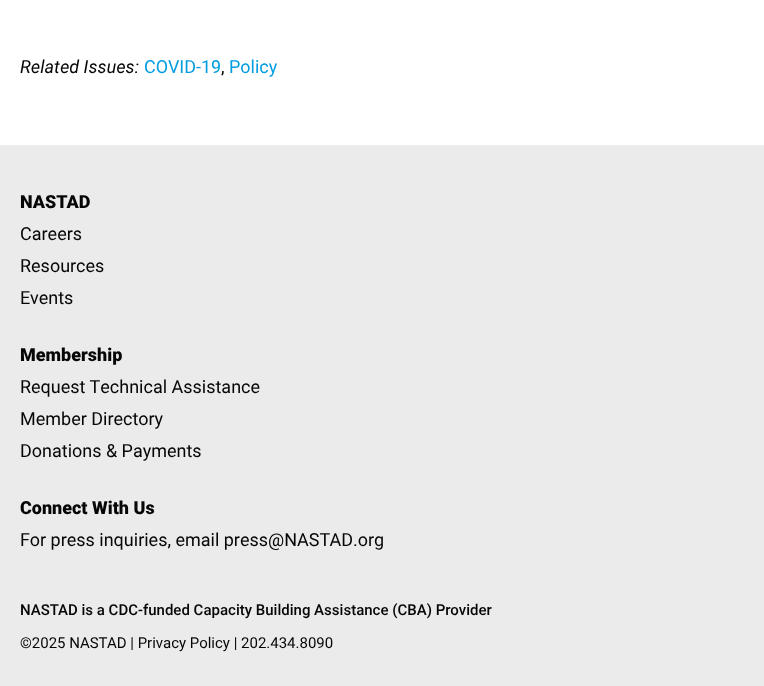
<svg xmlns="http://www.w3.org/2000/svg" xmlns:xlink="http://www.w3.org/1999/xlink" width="764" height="686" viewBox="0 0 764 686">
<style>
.cls-1{font:italic 18px Roboto;fill:#060606}
.cls-2{font:18px Roboto;fill:#019de0}
.cls-3{font:18px Roboto;fill:#060606}
.cls-4{font:900 18px Roboto;fill:#060606}
.cls-5{font:500 15px Roboto;fill:#060606}
.cls-6{font:15px Roboto;fill:#060606}
</style>
<rect width="100%" height="100%" fill="#ffffff"/>
<rect fill="#ebebeb" x="0" y="145" width="764" height="541"/>
<text class="cls-1" x="20" y="73">Related Issues:</text>
<text class="cls-2" x="144" y="73">COVID-19</text>
<text class="cls-3" x="221" y="73">,</text>
<text class="cls-2" x="229" y="73">Policy</text>
<text class="cls-4" x="20" y="208">NASTAD</text>
<text class="cls-3"><tspan x="20" y="240">Careers</tspan><tspan x="20" y="272">Resources</tspan><tspan x="20" y="304">Events</tspan></text>
<text class="cls-4" x="20" y="361">Membership</text>
<text class="cls-3"><tspan x="20" y="393">Request Technical Assistance</tspan><tspan x="20" y="425">Member Directory</tspan><tspan x="20" y="457">Donations &amp; Payments</tspan></text>
<text class="cls-4" x="20" y="514">Connect With Us</text>
<text class="cls-3" x="20" y="546">For press inquiries, email press@NASTAD.org</text>
<text class="cls-5" x="20" y="615">NASTAD is a CDC-funded Capacity Building Assistance (CBA) Provider</text>
<text class="cls-6" x="20" y="648">©2025 NASTAD | Privacy Policy | 202.434.8090</text>
</svg>
